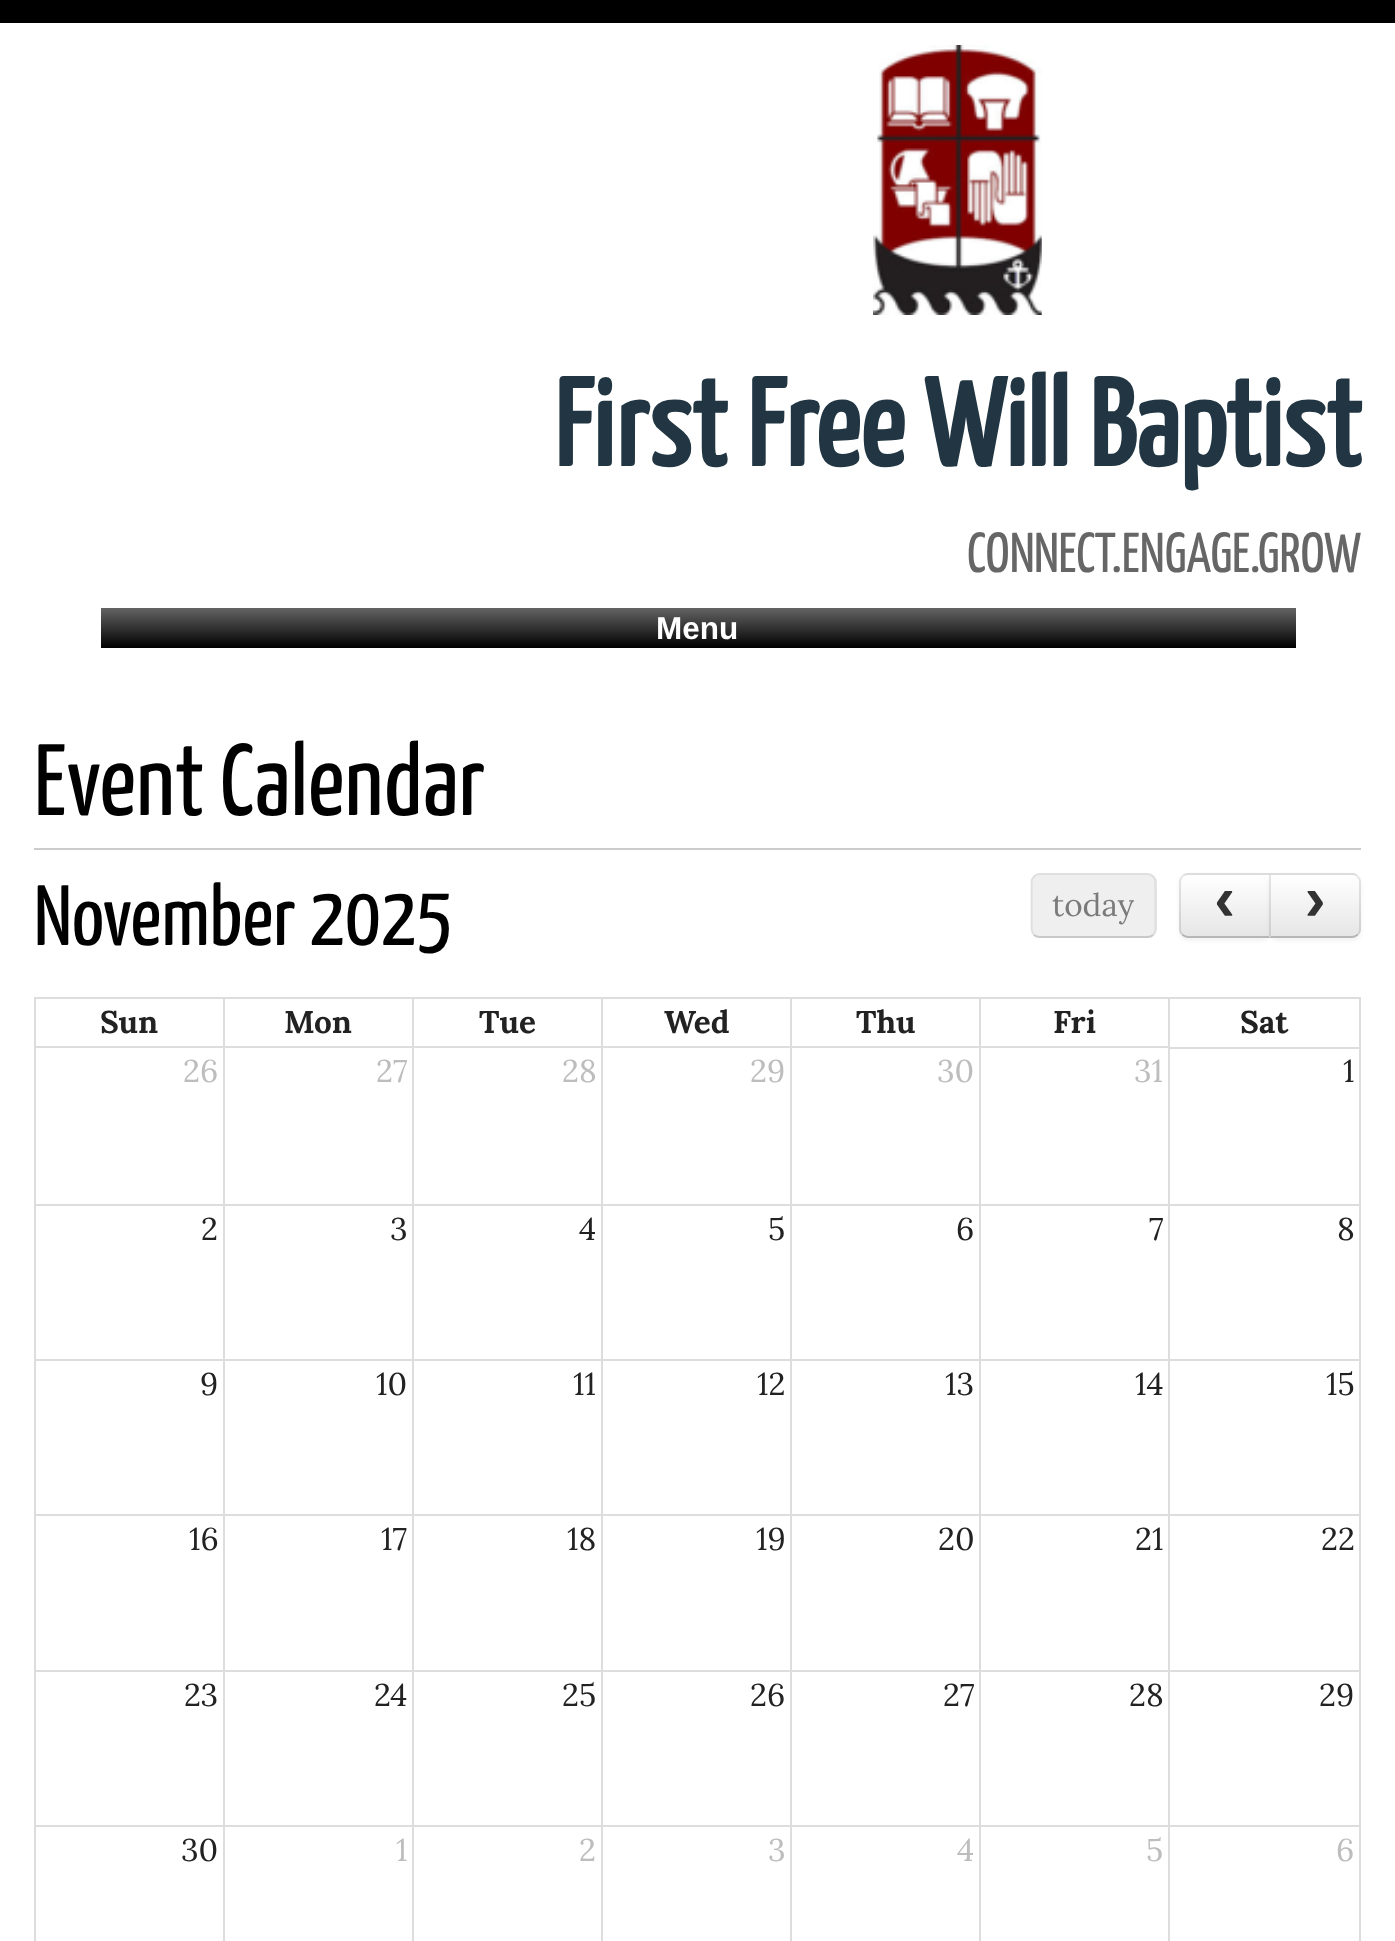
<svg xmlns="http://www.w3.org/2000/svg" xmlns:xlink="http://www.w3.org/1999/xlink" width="1395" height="1941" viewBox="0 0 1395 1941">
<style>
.cls-1{font:bold 123.75px Yanone Kaffeesatz;fill:#213642}
.cls-2{font:200 56.25px Yanone Kaffeesatz;fill:#666666}
.cls-3{font:bold 31.5px Liberation Sans;fill:#ffffff}
.cls-4{font:200 101.25px Yanone Kaffeesatz;fill:#000000}
.cls-5{font:200 85.5px Yanone Kaffeesatz;fill:#000000}
.cls-6{font:31.5px Lora;fill:#7a7a7a}
.cls-7{font:bold 63px Liberation Mono;fill:#333333}
.cls-8{font:bold 31.5px Lora;fill:#222222}
.cls-9{font:31.5px Lora;fill:#bdbdbd}
.cls-10{font:31.5px Lora;fill:#222222}
</style>
<defs>
<linearGradient id="g1" gradientUnits="userSpaceOnUse" x1="699" y1="607" x2="699" y2="648"><stop offset="0" stop-color="#666666"/><stop offset="1" stop-color="#000000"/></linearGradient>
<clipPath id="clip1"><path d="M1188 873H1271V938H1188C1183 938 1179 934 1179 929V882C1179 877 1183 873 1188 873Z"/></clipPath>
<linearGradient id="g2" gradientUnits="userSpaceOnUse" x1="1225" y1="875" x2="1225" y2="936"><stop offset="0" stop-color="#ffffff"/><stop offset="1" stop-color="#e6e6e6"/></linearGradient>
<clipPath id="clip2"><path d="M1269 873H1352C1357 873 1361 877 1361 882V929C1361 934 1357 938 1352 938H1269Z"/></clipPath>
<linearGradient id="g3" gradientUnits="userSpaceOnUse" x1="1315" y1="875" x2="1315" y2="936"><stop offset="0" stop-color="#ffffff"/><stop offset="1" stop-color="#e6e6e6"/></linearGradient>
</defs>
<rect width="100%" height="100%" fill="#ffffff"/>
<rect fill="#000000" x="0" y="0" width="1395" height="23"/>
<image xlink:href="image0.png" x="873" y="45" width="169" height="270"/>
<rect fill="url(#g1)" x="101" y="608" width="1195" height="40"/>
<rect fill="#cccccc" x="34" y="848" width="1327" height="2"/>
<rect fill="#efefef" x="1031" y="873" width="126" height="65" rx="9"/>
<path fill="none" stroke="#595959" stroke-opacity="0.25" stroke-width="2.2" d="M1153 935C1151.5 936.5 1149.5 937 1147.5 937H1039.5C1037.5 937 1035.5 936.5 1034 935"/>
<path fill="none" stroke="#595959" stroke-opacity="0.1" stroke-width="2.2" d="M1034 935C1032.5 933.5 1031.5 931.5 1031.5 929V882C1031.5 880 1032.5 878 1034 876.5C1035.5 875 1037.5 874 1039.5 874H1147.5C1149.5 874 1151.5 875 1153 876.5C1154.5 878 1155.5 880 1155.5 882V929C1155.5 931.5 1154.5 933.5 1153 935"/>
<rect fill="#000000" fill-opacity="0.05" filter="blur(2px)" x="1179" y="875" width="92" height="66" rx="9"/>
<path fill="#f5f5f5" d="M1188 873H1271V938H1188C1183 938 1179 934 1179 929V882C1179 877 1183 873 1188 873Z"/>
<g clip-path="url(#clip1)">
<rect fill="url(#g2)" x="1179" y="875" width="90" height="61"/>
</g>
<path fill="#000000" fill-opacity="0.1" d="M1188 873C1186 873 1183 874 1182 876L1183 877C1184 876 1186 875 1188 875H1269L1271 873Z"/>
<path fill="#000000" fill-opacity="0.25" d="M1271 938L1269 936H1188C1186 936 1184 935 1183 934L1182 935C1183 937 1186 938 1188 938Z"/>
<path fill="#000000" fill-opacity="0.1" d="M1179 882V929C1179 932 1180 934 1182 935L1183 934C1182 933 1181 931 1181 929V882C1181 880 1182 878 1183 877L1182 876C1180 877 1179 880 1179 882Z"/>
<rect fill="#000000" fill-opacity="0.05" filter="blur(2px)" x="1269" y="875" width="92" height="66" rx="9"/>
<path fill="#f5f5f5" d="M1269 873H1352C1357 873 1361 877 1361 882V929C1361 934 1357 938 1352 938H1269Z"/>
<g clip-path="url(#clip2)">
<rect fill="url(#g3)" x="1269" y="875" width="92" height="61"/>
</g>
<path fill="#000000" fill-opacity="0.1" d="M1269 873L1271 875H1352C1354 875 1356 876 1357 877L1358 876C1357 874 1355 873 1352 873Z"/>
<path fill="#000000" fill-opacity="0.1" d="M1358 876C1360 877 1361 880 1361 882V929C1361 932 1360 934 1358 935L1357 934C1358 933 1359 931 1359 929V882C1359 880 1358 878 1357 877Z"/>
<path fill="#000000" fill-opacity="0.25" d="M1358 935C1357 937 1354 938 1352 938H1269L1271 936H1352C1354 936 1356 935 1357 934Z"/>
<path fill="#000000" fill-opacity="0.1" d="M1271 875L1269 873V938L1271 936Z"/>
<rect fill="#dddddd" x="34" y="997" width="1134" height="2"/>
<rect fill="#dddddd" x="34" y="1046" width="1134" height="2"/>
<rect fill="#dddddd" x="34" y="997" width="2" height="207"/>
<rect fill="#dddddd" x="223" y="997" width="2" height="207"/>
<rect fill="#dddddd" x="412" y="997" width="2" height="207"/>
<rect fill="#dddddd" x="601" y="997" width="2" height="207"/>
<rect fill="#dddddd" x="790" y="997" width="2" height="207"/>
<rect fill="#dddddd" x="979" y="997" width="2" height="207"/>
<rect fill="none" stroke="#dddddd" stroke-width="2" x="1169" y="998" width="191" height="50"/>
<rect fill="#dddddd" x="1359" y="1049" width="2" height="155"/>
<rect fill="#dddddd" x="1168" y="1049" width="2" height="155"/>
<rect fill="#dddddd" x="34" y="1204" width="1327" height="2"/>
<rect fill="#dddddd" x="34" y="1204" width="2" height="155"/>
<rect fill="#dddddd" x="223" y="1204" width="2" height="155"/>
<rect fill="#dddddd" x="412" y="1204" width="2" height="155"/>
<rect fill="#dddddd" x="601" y="1204" width="2" height="155"/>
<rect fill="#dddddd" x="790" y="1204" width="2" height="155"/>
<rect fill="#dddddd" x="979" y="1204" width="2" height="155"/>
<rect fill="#dddddd" x="1359" y="1204" width="2" height="155"/>
<rect fill="#dddddd" x="1168" y="1204" width="2" height="155"/>
<rect fill="#dddddd" x="34" y="1359" width="1327" height="2"/>
<rect fill="#dddddd" x="34" y="1359" width="2" height="155"/>
<rect fill="#dddddd" x="223" y="1359" width="2" height="155"/>
<rect fill="#dddddd" x="412" y="1359" width="2" height="155"/>
<rect fill="#dddddd" x="601" y="1359" width="2" height="155"/>
<rect fill="#dddddd" x="790" y="1359" width="2" height="155"/>
<rect fill="#dddddd" x="979" y="1359" width="2" height="155"/>
<rect fill="#dddddd" x="1359" y="1359" width="2" height="155"/>
<rect fill="#dddddd" x="1168" y="1359" width="2" height="155"/>
<rect fill="#dddddd" x="34" y="1514" width="1327" height="2"/>
<rect fill="#dddddd" x="34" y="1514" width="2" height="156"/>
<rect fill="#dddddd" x="223" y="1514" width="2" height="156"/>
<rect fill="#dddddd" x="412" y="1514" width="2" height="156"/>
<rect fill="#dddddd" x="601" y="1514" width="2" height="156"/>
<rect fill="#dddddd" x="790" y="1514" width="2" height="156"/>
<rect fill="#dddddd" x="979" y="1514" width="2" height="156"/>
<rect fill="#dddddd" x="1359" y="1514" width="2" height="156"/>
<rect fill="#dddddd" x="1168" y="1514" width="2" height="156"/>
<rect fill="#dddddd" x="34" y="1670" width="1327" height="2"/>
<rect fill="#dddddd" x="34" y="1670" width="2" height="155"/>
<rect fill="#dddddd" x="223" y="1670" width="2" height="155"/>
<rect fill="#dddddd" x="412" y="1670" width="2" height="155"/>
<rect fill="#dddddd" x="601" y="1670" width="2" height="155"/>
<rect fill="#dddddd" x="790" y="1670" width="2" height="155"/>
<rect fill="#dddddd" x="979" y="1670" width="2" height="155"/>
<rect fill="#dddddd" x="1359" y="1670" width="2" height="155"/>
<rect fill="#dddddd" x="1168" y="1670" width="2" height="155"/>
<rect fill="#dddddd" x="34" y="1825" width="1134" height="2"/>
<rect fill="#dddddd" x="34" y="1825" width="2" height="116"/>
<rect fill="#dddddd" x="223" y="1825" width="2" height="116"/>
<rect fill="#dddddd" x="412" y="1825" width="2" height="116"/>
<rect fill="#dddddd" x="601" y="1825" width="2" height="116"/>
<rect fill="#dddddd" x="790" y="1825" width="2" height="116"/>
<rect fill="#dddddd" x="979" y="1825" width="2" height="116"/>
<rect fill="none" stroke="#dddddd" stroke-width="2" x="1169" y="1826" width="191" height="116"/>
<text class="cls-1" x="554" y="466">First Free Will Baptist</text>
<text class="cls-2" x="967" y="572">CONNECT.ENGAGE.GROW</text>
<text class="cls-3" x="656" y="639">Menu</text>
<text class="cls-4" x="34" y="815">Event Calendar</text>
<text class="cls-5" x="34" y="945">November 2025</text>
<text class="cls-6" x="1052" y="916">today</text>
<text class="cls-7" x="1206" y="920">‹</text>
<text class="cls-7" x="1296" y="920">›</text>
<text class="cls-8" x="100" y="1033">Sun</text>
<text class="cls-8" x="284" y="1033">Mon</text>
<text class="cls-8" x="479" y="1033">Tue</text>
<text class="cls-8" x="664" y="1033">Wed</text>
<text class="cls-8" x="856" y="1033">Thu</text>
<text class="cls-8" x="1053" y="1033">Fri</text>
<text class="cls-8" x="1240" y="1033">Sat</text>
<text class="cls-9" x="183" y="1082">26</text>
<text class="cls-9" x="376" y="1082">27</text>
<text class="cls-9" x="562" y="1082">28</text>
<text class="cls-9" x="750" y="1082">29</text>
<text class="cls-9" x="937" y="1082">30</text>
<text class="cls-9" x="1134" y="1082">31</text>
<text class="cls-10" x="1343" y="1082">1</text>
<text class="cls-10" x="201" y="1240">2</text>
<text class="cls-10" x="390" y="1240">3</text>
<text class="cls-10" x="579" y="1240">4</text>
<text class="cls-10" x="768" y="1240">5</text>
<text class="cls-10" x="956" y="1240">6</text>
<text class="cls-10" x="1149" y="1240">7</text>
<text class="cls-10" x="1337" y="1240">8</text>
<text class="cls-10" x="200" y="1395">9</text>
<text class="cls-10" x="376" y="1395">10</text>
<text class="cls-10" x="573" y="1395">11</text>
<text class="cls-10" x="757" y="1395">12</text>
<text class="cls-10" x="945" y="1395">13</text>
<text class="cls-10" x="1135" y="1395">14</text>
<text class="cls-10" x="1326" y="1395">15</text>
<text class="cls-10" x="189" y="1550">16</text>
<text class="cls-10" x="381" y="1550">17</text>
<text class="cls-10" x="567" y="1550">18</text>
<text class="cls-10" x="756" y="1550">19</text>
<text class="cls-10" x="938" y="1550">20</text>
<text class="cls-10" x="1135" y="1550">21</text>
<text class="cls-10" x="1321" y="1550">22</text>
<text class="cls-10" x="184" y="1706">23</text>
<text class="cls-10" x="374" y="1706">24</text>
<text class="cls-10" x="562" y="1706">25</text>
<text class="cls-10" x="750" y="1706">26</text>
<text class="cls-10" x="943" y="1706">27</text>
<text class="cls-10" x="1129" y="1706">28</text>
<text class="cls-10" x="1319" y="1706">29</text>
<text class="cls-10" x="181" y="1861">30</text>
<text class="cls-9" x="396" y="1861">1</text>
<text class="cls-9" x="579" y="1861">2</text>
<text class="cls-9" x="768" y="1861">3</text>
<text class="cls-9" x="957" y="1861">4</text>
<text class="cls-9" x="1146" y="1861">5</text>
<text class="cls-9" x="1336" y="1861">6</text>
</svg>
